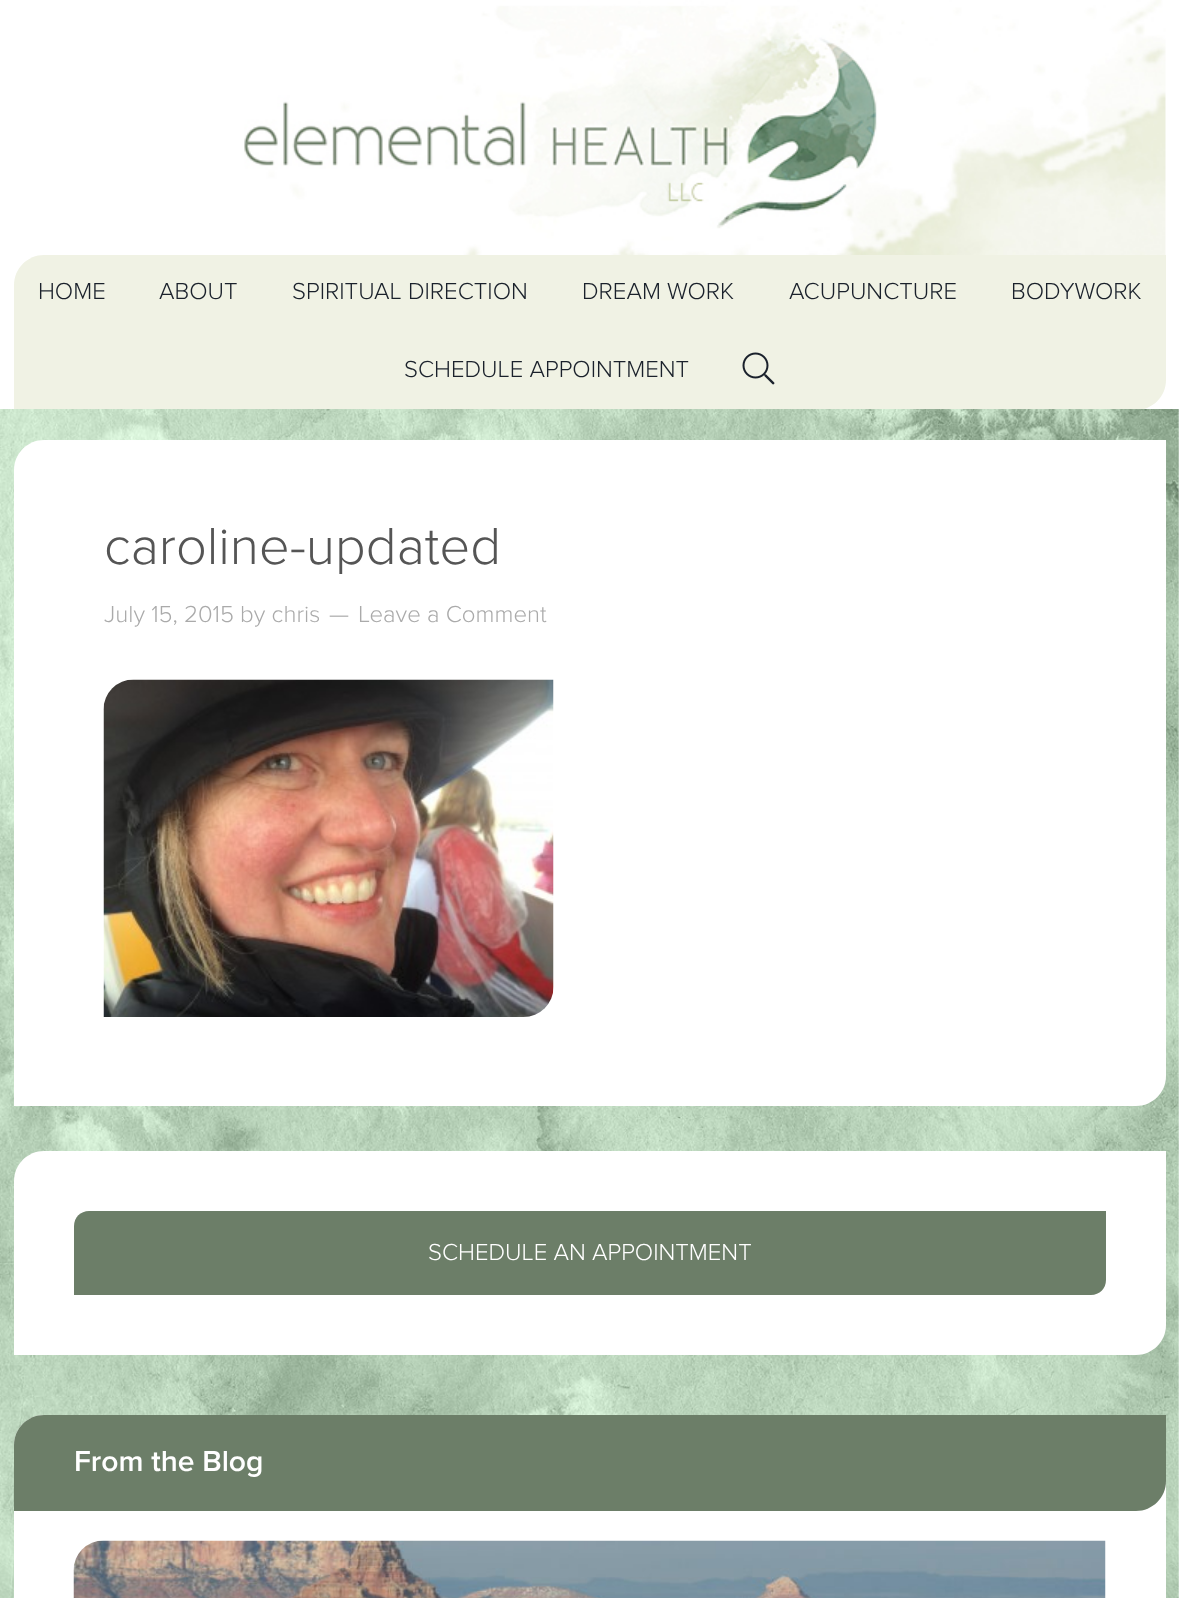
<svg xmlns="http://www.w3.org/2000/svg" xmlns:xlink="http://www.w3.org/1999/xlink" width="1179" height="1598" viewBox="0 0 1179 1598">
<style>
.cls-1{font:300 24px Proxima Nova;fill:#1a212b}
.cls-2{font:300 54px Proxima Nova;fill:#555555}
.cls-3{font:300 24px Proxima Nova;fill:#aaaaaa}
.cls-4{font:300 24px Proxima Nova;fill:#ffffff}
.cls-5{font:600 30px Proxima Nova;fill:#ffffff}
</style>
<rect width="100%" height="100%" fill="#ffffff"/>
<image xlink:href="image0.png" x="244" y="0" width="922" height="255"/>
<rect fill="#ffffff" fill-opacity="0.1" x="746" y="38" width="415" height="22"/>
<path fill="#f0f2e4" d="M44 255H1166V380C1166 396.5 1152.5 410 1136 410H14V285C14 268.5 27.5 255 44 255Z"/>
<image xlink:href="image1.png" x="742" y="352" width="33" height="33"/>
<image xlink:href="image2.png" x="0" y="409" width="1179" height="1189"/>
<path fill="#ffffff" d="M44 440H1166V1076C1166 1092.5 1152.5 1106 1136 1106H14V470C14 453.5 27.5 440 44 440Z"/>
<image xlink:href="image3.png" x="103" y="679" width="451" height="338"/>
<path fill="#ffffff" d="M44 1151H1166V1325C1166 1341.5 1152.5 1355 1136 1355H14V1181C14 1164.5 27.5 1151 44 1151Z"/>
<path fill="#6c7e68" d="M89 1211H1106V1280C1106 1288.5 1099.5 1295 1091 1295H74V1226C74 1217.5 80.5 1211 89 1211Z"/>
<path fill="#ffffff" d="M44 1415H1166V1598C1166 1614.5 1152.5 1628 1136 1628H14V1445C14 1428.5 27.5 1415 44 1415Z"/>
<path fill="#6c7e68" d="M44 1415H1166V1481C1166 1497.5 1152.5 1511 1136 1511H14V1445C14 1428.5 27.5 1415 44 1415Z"/>
<image xlink:href="image4.png" x="73" y="1540" width="1033" height="58"/>
<text class="cls-1" x="38" y="299">HOME</text>
<text class="cls-1" x="159" y="299">ABOUT</text>
<text class="cls-1" x="292" y="299">SPIRITUAL DIRECTION</text>
<text class="cls-1" x="582" y="299">DREAM WORK</text>
<text class="cls-1" x="789" y="299">ACUPUNCTURE</text>
<text class="cls-1" x="1011" y="299">BODYWORK</text>
<text class="cls-1" x="404" y="377">SCHEDULE APPOINTMENT</text>
<text class="cls-2" x="104" y="564">caroline-updated</text>
<text class="cls-3" x="104" y="622">July 15, 2015 by chris</text>
<text class="cls-3" x="329" y="622">—</text>
<text class="cls-3" x="358" y="622">Leave a Comment</text>
<text class="cls-4" x="428" y="1260">SCHEDULE AN APPOINTMENT</text>
<text class="cls-5" x="74" y="1471">From the Blog</text>
</svg>
